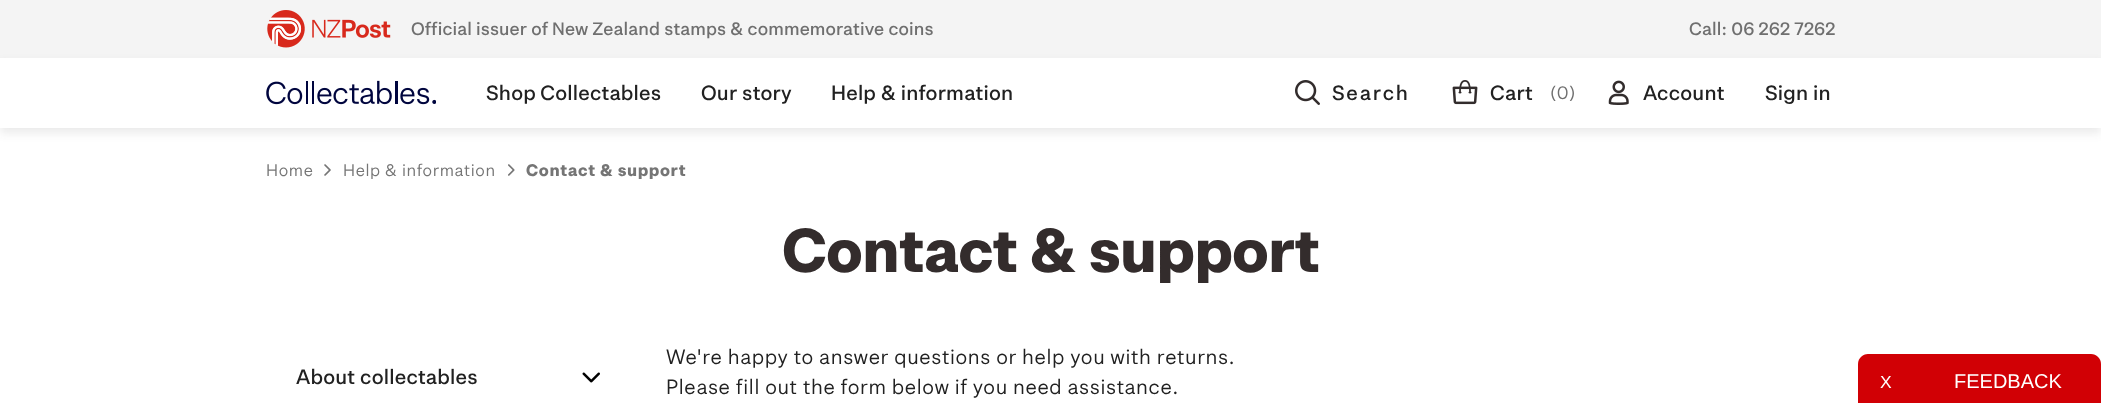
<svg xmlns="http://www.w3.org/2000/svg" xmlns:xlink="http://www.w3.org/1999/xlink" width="2101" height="403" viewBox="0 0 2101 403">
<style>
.cls-1{font:500 17.5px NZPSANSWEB;letter-spacing:0.12px;fill:#6f6f6f}
.cls-2{font:500 20px NZPSANSWEB;letter-spacing:0.2px;fill:#212121}
.cls-3{font:500 20px NZPSANSWEB;letter-spacing:1.75px;fill:#212121}
.cls-4{font:17.5px NZPSANSWEB;letter-spacing:0.12px;fill:#6f6f6f}
.cls-5{font:16.25px NZPSANSWEB;letter-spacing:0.62px;fill:#757575}
.cls-6{font:bold 16.25px NZPSANSWEB;letter-spacing:0.62px;fill:#757575}
.cls-7{font:bold 60px NZPSANSWEB;letter-spacing:-0.9px;fill:#332c2c}
.cls-8{font:20px NZPSANSWEB;letter-spacing:0.62px;fill:#212121}
.cls-9{font:17.5px Liberation Sans;fill:#ffffff}
.cls-10{font:20px Liberation Sans;fill:#ffffff}
</style>
<rect width="100%" height="100%" fill="#ffffff"/>
<rect fill="#f4f4f4" x="0" y="0" width="2101" height="58"/>
<rect fill="#303133" fill-opacity="0.1" filter="blur(5px)" x="0" y="63" width="2101" height="70"/>
<image xlink:href="image0.png" x="267" y="10" width="124" height="38"/>
<rect fill="#ffffff" x="0" y="58" width="2101" height="70"/>
<image xlink:href="image1.png" x="266" y="80" width="170" height="25"/>
<image xlink:href="image2.png" x="1295" y="80" width="25" height="25"/>
<image xlink:href="image3.png" x="1452" y="80" width="26" height="25"/>
<image xlink:href="image4.png" x="1608" y="80" width="21" height="25"/>
<image xlink:href="image5.png" x="324" y="164" width="7" height="12"/>
<image xlink:href="image6.png" x="508" y="164" width="7" height="12"/>
<image xlink:href="image7.png" x="582" y="372" width="18" height="11"/>
<path fill="#d10005" d="M1868 354H1914V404H1858V364C1858 358.5 1862.5 354 1868 354Z"/>
<path fill="#d10005" d="M1914 354H2091C2096.5 354 2101 358.5 2101 364V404H1914Z"/>
<text class="cls-1" x="411" y="35">Official issuer of New Zealand stamps &amp; commemorative coins</text>
<text class="cls-1" x="1689" y="35">Call: 06 262 7262</text>
<text class="cls-2" x="486" y="100">Shop Collectables</text>
<text class="cls-2" x="701" y="100">Our story</text>
<text class="cls-2" x="831" y="100">Help &amp; information</text>
<text class="cls-3" x="1332" y="100">Search</text>
<text class="cls-2" x="1490" y="100">Cart</text>
<text class="cls-4" x="1550" y="99">(0)</text>
<text class="cls-2" x="1643" y="100">Account</text>
<text class="cls-2" x="1765" y="100">Sign in</text>
<text class="cls-5" x="266" y="176">Home</text>
<text class="cls-5" x="343" y="176">Help &amp; information</text>
<text class="cls-6" x="526" y="176">Contact &amp; support</text>
<text class="cls-7" x="782" y="272">Contact &amp; support</text>
<text class="cls-2" x="296" y="384">About collectables</text>
<text class="cls-8"><tspan x="666" y="364">We're happy to answer questions or help you with returns.</tspan><tspan x="666" y="394">Please fill out the form below if you need assistance.</tspan></text>
<text class="cls-9" x="1880" y="388">X</text>
<text class="cls-10" x="1954" y="388">FEEDBACK</text>
</svg>
